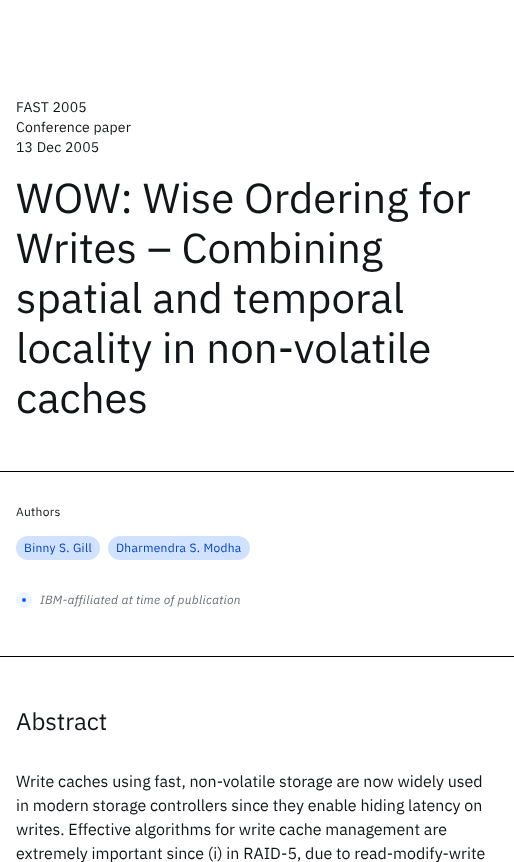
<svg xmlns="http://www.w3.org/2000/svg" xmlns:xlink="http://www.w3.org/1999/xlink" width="514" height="862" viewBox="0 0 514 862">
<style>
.cls-1{font:14px IBM Plex Sans;letter-spacing:0.2px;fill:#121619}
.cls-2{font:42px IBM Plex Sans;fill:#121619}
.cls-3{font:24px IBM Plex Sans;fill:#121619}
.cls-4{font:16px IBM Plex Sans;fill:#121619}
.cls-5{font:12px IBM Plex Sans;letter-spacing:0.3px;fill:#121619}
.cls-6{font:12px IBM Plex Sans;letter-spacing:0.3px;fill:#0043ce}
.cls-7{font:italic 12px IBM Plex Sans;letter-spacing:0.3px;fill:#697077}
</style>
<rect width="100%" height="100%" fill="#ffffff"/>
<rect fill="#000000" x="0" y="471" width="514" height="1"/>
<rect fill="#000000" x="0" y="656" width="514" height="1"/>
<rect fill="#d0e2ff" x="16" y="536" width="84" height="24" rx="12"/>
<rect fill="#d0e2ff" x="108" y="536" width="142" height="24" rx="12"/>
<circle fill="#edf5ff" cx="24" cy="600" r="8"/>
<circle fill="#0f62fe" cx="24" cy="600" r="2"/>
<text class="cls-1"><tspan x="16" y="112">FAST 2005</tspan><tspan x="16" y="132">Conference paper</tspan><tspan x="16" y="152">13 Dec 2005</tspan></text>
<text class="cls-2"><tspan x="16" y="213">WOW: Wise Ordering for</tspan><tspan x="16" y="263">Writes – Combining</tspan><tspan x="16" y="313">spatial and temporal</tspan><tspan x="16" y="363">locality in non-volatile</tspan><tspan x="16" y="413">caches</tspan></text>
<text class="cls-3" x="16" y="730">Abstract</text>
<text class="cls-4"><tspan x="16" y="787">Write caches using fast, non-volatile storage are now widely used</tspan><tspan x="16" y="811">in modern storage controllers since they enable hiding latency on</tspan><tspan x="16" y="835">writes. Effective algorithms for write cache management are</tspan><tspan x="16" y="859">extremely important since (i) in RAID-5, due to read-modify-write</tspan></text>
<text class="cls-5" x="16" y="516">Authors</text>
<text class="cls-6" x="24" y="552">Binny S. Gill</text>
<text class="cls-6" x="116" y="552">Dharmendra S. Modha</text>
<text class="cls-7" x="40" y="604">IBM-affiliated at time of publication</text>
</svg>
